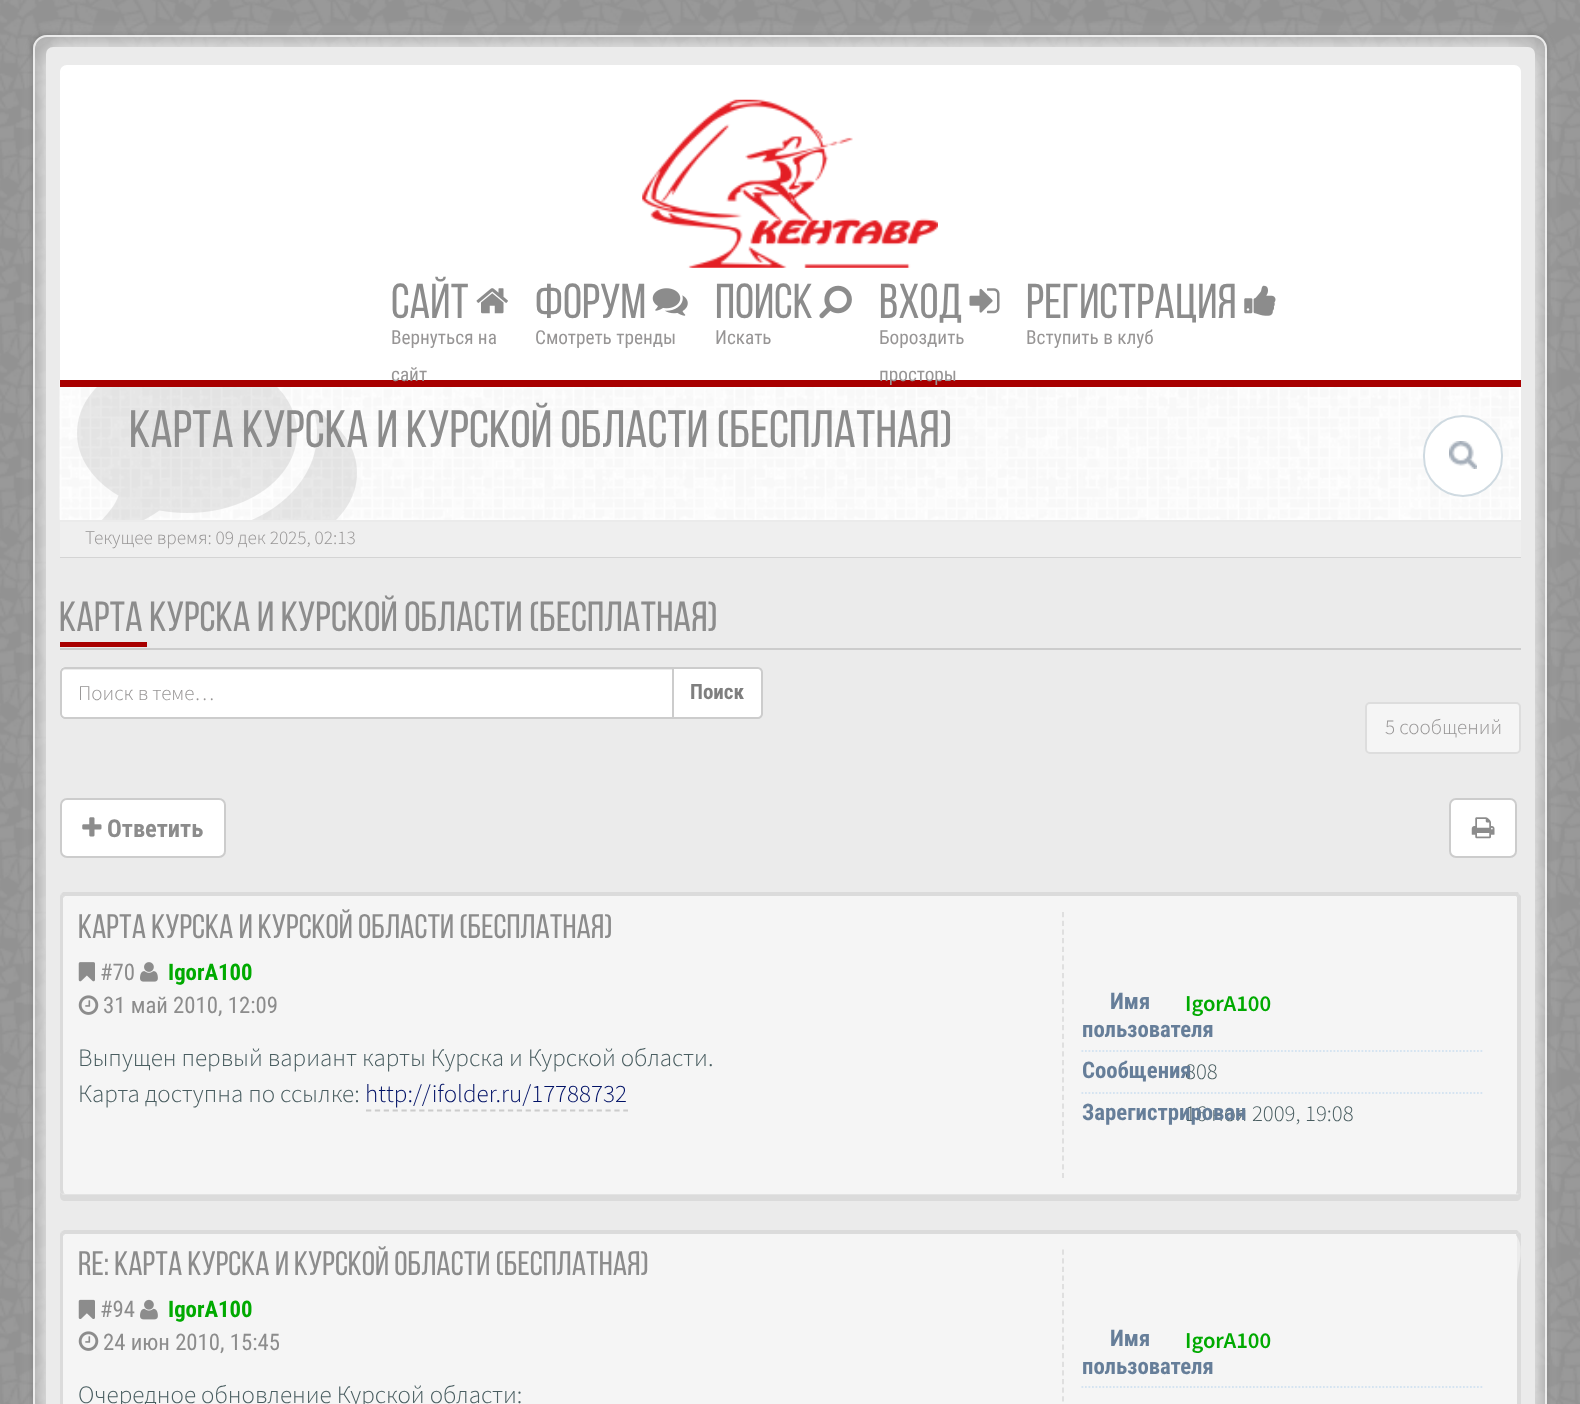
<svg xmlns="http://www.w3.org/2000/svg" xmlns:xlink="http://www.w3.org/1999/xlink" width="1580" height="1404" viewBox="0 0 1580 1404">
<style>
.cls-1{font:49px Bebas Neue;fill:#8c8c8c}
.cls-2{font:19.25px Roboto Condensed;fill:#979595}
.cls-3{font:52.5px Bebas Neue;fill:#8c8c8c}
.cls-4{font:300 19.25px Source Sans Pro;fill:#979595}
.cls-5{font:42px Bebas Neue;fill:#8c8c8c}
.cls-6{font:300 21px Source Sans Pro;fill:#979595}
.cls-7{font:bold 21px Roboto Condensed;fill:#7f7f7f}
.cls-8{font:bold 24.5px Roboto Condensed;fill:#8c8c8c}
.cls-9{font:34.1px Bebas Neue;fill:#8c8c8c}
.cls-10{font:22.75px Roboto Condensed;fill:#8c8c8c}
.cls-11{font:bold 22.75px Roboto Condensed;fill:#00aa00}
.cls-12{font:300 25px Source Sans Pro;fill:#495d60}
.cls-13{font:300 25px Source Sans Pro;fill:#001166}
.cls-14{font:bold 22.75px Roboto Condensed;fill:#667e99}
.cls-15{font:600 22.75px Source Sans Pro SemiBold;fill:#00aa00}
.cls-16{font:300 22.75px Source Sans Pro;fill:#495d60}
</style>
<defs>
<clipPath id="clip1"><path d="M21 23H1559V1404H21ZM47 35H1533C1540.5 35 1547 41.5 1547 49V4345C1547 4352.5 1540.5 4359 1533 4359H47C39.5 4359 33 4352.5 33 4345V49C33 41.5 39.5 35 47 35Z" clip-rule="evenodd"/></clipPath>
</defs>
<rect width="100%" height="100%" fill="#999999"/>
<image xlink:href="image0.png" x="0" y="0" width="1580" height="1404"/>
<g clip-path="url(#clip1)">
<rect fill="#323232" fill-opacity="0.5" filter="blur(3.5px)" x="33" y="35" width="1514" height="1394" rx="14"/>
</g>
<rect fill="#ffffff" fill-opacity="0.2" x="33" y="35" width="1514" height="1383" rx="14"/>
<rect fill="none" stroke="#ffffff" stroke-opacity="0.75" stroke-width="2" x="34" y="36" width="1512" height="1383" rx="13"/>
<rect fill="#ffffff" filter="blur(12px)" x="46" y="47" width="1489" height="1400" rx="7"/>
<rect fill="#ebebeb" x="46" y="47" width="1489" height="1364" rx="7"/>
<path fill="#ffffff" d="M67 65H1514C1518 65 1521 68 1521 72V380H60V72C60 68 63 65 67 65Z"/>
<image xlink:href="image1.png" x="642" y="99" width="296" height="169"/>
<image xlink:href="image2.png" x="476" y="288" width="32" height="26"/>
<image xlink:href="image3.png" x="652" y="288" width="36" height="28"/>
<image xlink:href="image4.png" x="819" y="285" width="33" height="34"/>
<image xlink:href="image5.png" x="969" y="288" width="31" height="26"/>
<image xlink:href="image6.png" x="1244" y="285" width="32" height="31"/>
<rect fill="#ffffff" x="60" y="387" width="1461" height="133"/>
<image xlink:href="image7.png" x="59" y="380" width="1460" height="140"/>
<rect fill="#a80000" x="60" y="380" width="1461" height="7"/>
<image xlink:href="image8.png" x="77" y="387" width="280" height="133"/>
<rect fill="#ffffff" x="1423" y="415" width="80" height="82" rx="40"/>
<image xlink:href="image9.png" x="1449" y="441" width="28" height="28"/>
<rect fill="none" stroke="#cfdae1" stroke-width="2" x="1424" y="416" width="78" height="80" rx="39"/>
<path fill="#d4d4d4" d="M60 556V558H1521V523V556Z"/>
<rect fill="#efefef" x="60" y="522" width="1461" height="35"/>
<rect fill="#cccccc" x="60" y="648" width="1461" height="2"/>
<rect fill="#a80000" x="60" y="642" width="87" height="5"/>
<path fill="#ffffff" d="M65 667H674V719H65C62 719 60 717 60 714V672C60 669 62 667 65 667Z"/>
<path fill="#ececec" d="M65 670H672V669H65C62 669 61 671 61 674C61 672 63 670 65 670Z"/>
<path fill="none" stroke="#cccccc" stroke-width="2" d="M65 668H673V718H65C63 718 61 716 61 714V672C61 670 63 668 65 668Z"/>
<path fill="#ffffff" stroke="#cccccc" stroke-width="2" d="M673 668H758C760 668 762 670 762 672V714C762 716 760 718 758 718H673Z"/>
<rect fill="#f5f5f5" stroke="#dddddd" stroke-width="2" x="1366" y="703" width="154" height="50" rx="4"/>
<rect fill="#ffffff" stroke="#cccccc" stroke-width="2" x="61" y="799" width="164" height="58" rx="6"/>
<image xlink:href="image10.png" x="82" y="817" width="20" height="20"/>
<rect fill="#ffffff" stroke="#cccccc" stroke-width="2" x="1450" y="799" width="66" height="58" rx="6"/>
<image xlink:href="image11.png" x="1471" y="817" width="24" height="22"/>
<path fill="#dbdbdb" d="M60 1192V1196C60 1199 62 1201 65 1201H1516C1519 1201 1521 1199 1521 1196V901V1190C1521 1193 1518 1195 1516 1195H65C63 1195 61 1194 60 1192Z"/>
<path fill="#f5f5f5" d="M65 896H1516C1516 896 1517 897 1517 898V1190C1517 1192 1516 1194 1516 1194H65C64 1194 63 1192 63 1190V898C63 897 64 896 65 896Z"/>
<path fill="#dbdbdb" d="M65 896L64 897L61 894L63 892H1518L1519 894L1517 897L1516 896Z"/>
<path fill="#dbdbdb" d="M1521 1191L1519 1194L1516 1193L1517 1190V898V897L1519 894L1521 896Z"/>
<path fill="#e3e3e3" d="M1519 1194L1516 1195H65L62 1194L64 1193L65 1194H1516V1193Z"/>
<path fill="#dbdbdb" d="M62 1194C61 1193 60 1192 60 1190V898C60 897 60 895 61 894L64 897L63 898V1190L64 1193Z"/>
<image xlink:href="image12.png" x="78" y="962" width="17" height="20"/>
<image xlink:href="image13.png" x="140" y="962" width="18" height="20"/>
<image xlink:href="image14.png" x="78" y="995" width="21" height="20"/>
<path fill="none" stroke="#cccccc" stroke-width="1.8" stroke-dasharray="5.25 3.62" d="M366 1110.5H628"/>
<path fill="none" stroke="#dddddd" stroke-width="1.8" stroke-dasharray="5.25 3.45" d="M1063 912V1178"/>
<path fill="none" stroke="#d5e4f1" stroke-width="1.8" stroke-dasharray="1.75 1.75" d="M1081.5 1051H1484"/>
<path fill="none" stroke="#d5e4f1" stroke-width="1.8" stroke-dasharray="1.75 1.75" d="M1081.5 1093H1484"/>
<path fill="#f5f5f5" d="M65 1234H1516C1516 1234 1517 1235 1517 1236V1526C1517 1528 1516 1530 1516 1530H65C64 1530 63 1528 63 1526V1236C63 1235 64 1234 65 1234Z"/>
<path fill="#dbdbdb" d="M65 1234L64 1235L61 1232L64 1230H1517L1519 1232L1516 1235V1234Z"/>
<path fill="#dbdbdb" d="M1521 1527L1519 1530L1516 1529L1517 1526V1284C1517 1268 1526 1248 1516 1235L1519 1232L1521 1234Z"/>
<path fill="#dbdbdb" d="M62 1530C61 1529 60 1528 60 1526V1236C60 1235 60 1233 61 1232L64 1235L63 1236V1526L64 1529Z"/>
<image xlink:href="image15.png" x="78" y="1299" width="17" height="20"/>
<image xlink:href="image16.png" x="140" y="1299" width="18" height="21"/>
<image xlink:href="image14.png" x="78" y="1331" width="21" height="20"/>
<path fill="none" stroke="#dddddd" stroke-width="1.8" stroke-dasharray="5.25 3.38" d="M1063 1249.5V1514"/>
<path fill="none" stroke="#d5e4f1" stroke-width="1.8" stroke-dasharray="1.75 1.75" d="M1081.5 1387H1484"/>
<text class="cls-1" x="391" y="318">САЙТ</text>
<text class="cls-2"><tspan x="391" y="344">Вернуться на</tspan><tspan x="391" y="381">сайт</tspan></text>
<text class="cls-1" x="535" y="318">ФОРУМ</text>
<text class="cls-2" x="535" y="344">Смотреть тренды</text>
<text class="cls-1" x="715" y="318">ПОИСК</text>
<text class="cls-2" x="715" y="344">Искать</text>
<text class="cls-1" x="879" y="318">ВХОД</text>
<text class="cls-2"><tspan x="879" y="344">Бороздить</tspan><tspan x="879" y="381">просторы</tspan></text>
<text class="cls-1" x="1026" y="318">РЕГИСТРАЦИЯ</text>
<text class="cls-2" x="1026" y="344">Вступить в клуб</text>
<text class="cls-3" x="129" y="447">КАРТА КУРСКА И КУРСКОЙ ОБЛАСТИ (БЕСПЛАТНАЯ)</text>
<text class="cls-4" x="85" y="544">Текущее время: 09 дек 2025, 02:13</text>
<text class="cls-5" x="59" y="631">КАРТА КУРСКА И КУРСКОЙ ОБЛАСТИ (БЕСПЛАТНАЯ)</text>
<text class="cls-6" x="78" y="700">Поиск в теме…</text>
<text class="cls-7" x="690" y="699">Поиск</text>
<text class="cls-6" x="1385" y="734">5 сообщений</text>
<text class="cls-8" x="107" y="837">Ответить</text>
<text class="cls-9" x="78" y="938">Карта Курска и Курской области (бесплатная)</text>
<text class="cls-10" x="100" y="980">#70</text>
<text class="cls-11" x="168" y="980">IgorA100</text>
<text class="cls-10" x="103" y="1013">31 май 2010, 12:09</text>
<text class="cls-12"><tspan x="78" y="1066">Выпущен первый вариант карты Курска и Курской области.</tspan><tspan x="78" y="1102">Карта доступна по ссылке:</tspan></text>
<text class="cls-13" x="365" y="1102">http://ifolder.ru/17788732</text>
<text class="cls-14" x="1110" y="1009">Имя</text>
<text class="cls-14" x="1082" y="1037">пользователя</text>
<text class="cls-15" x="1185" y="1011">IgorA100</text>
<text class="cls-16" x="1185" y="1079">808</text>
<text class="cls-14" x="1082" y="1078">Сообщения</text>
<text class="cls-16" x="1185" y="1121">16 ноя 2009, 19:08</text>
<text class="cls-14" x="1082" y="1120">Зарегистрирован</text>
<text class="cls-9" x="78" y="1275">Re: Карта Курска и Курской области (бесплатная)</text>
<text class="cls-10" x="100" y="1317">#94</text>
<text class="cls-11" x="168" y="1317">IgorA100</text>
<text class="cls-10" x="103" y="1350">24 июн 2010, 15:45</text>
<text class="cls-12" x="78" y="1403">Очередное обновление Курской области:</text>
<text class="cls-14" x="1110" y="1346">Имя</text>
<text class="cls-14" x="1082" y="1374">пользователя</text>
<text class="cls-15" x="1185" y="1348">IgorA100</text>
</svg>
